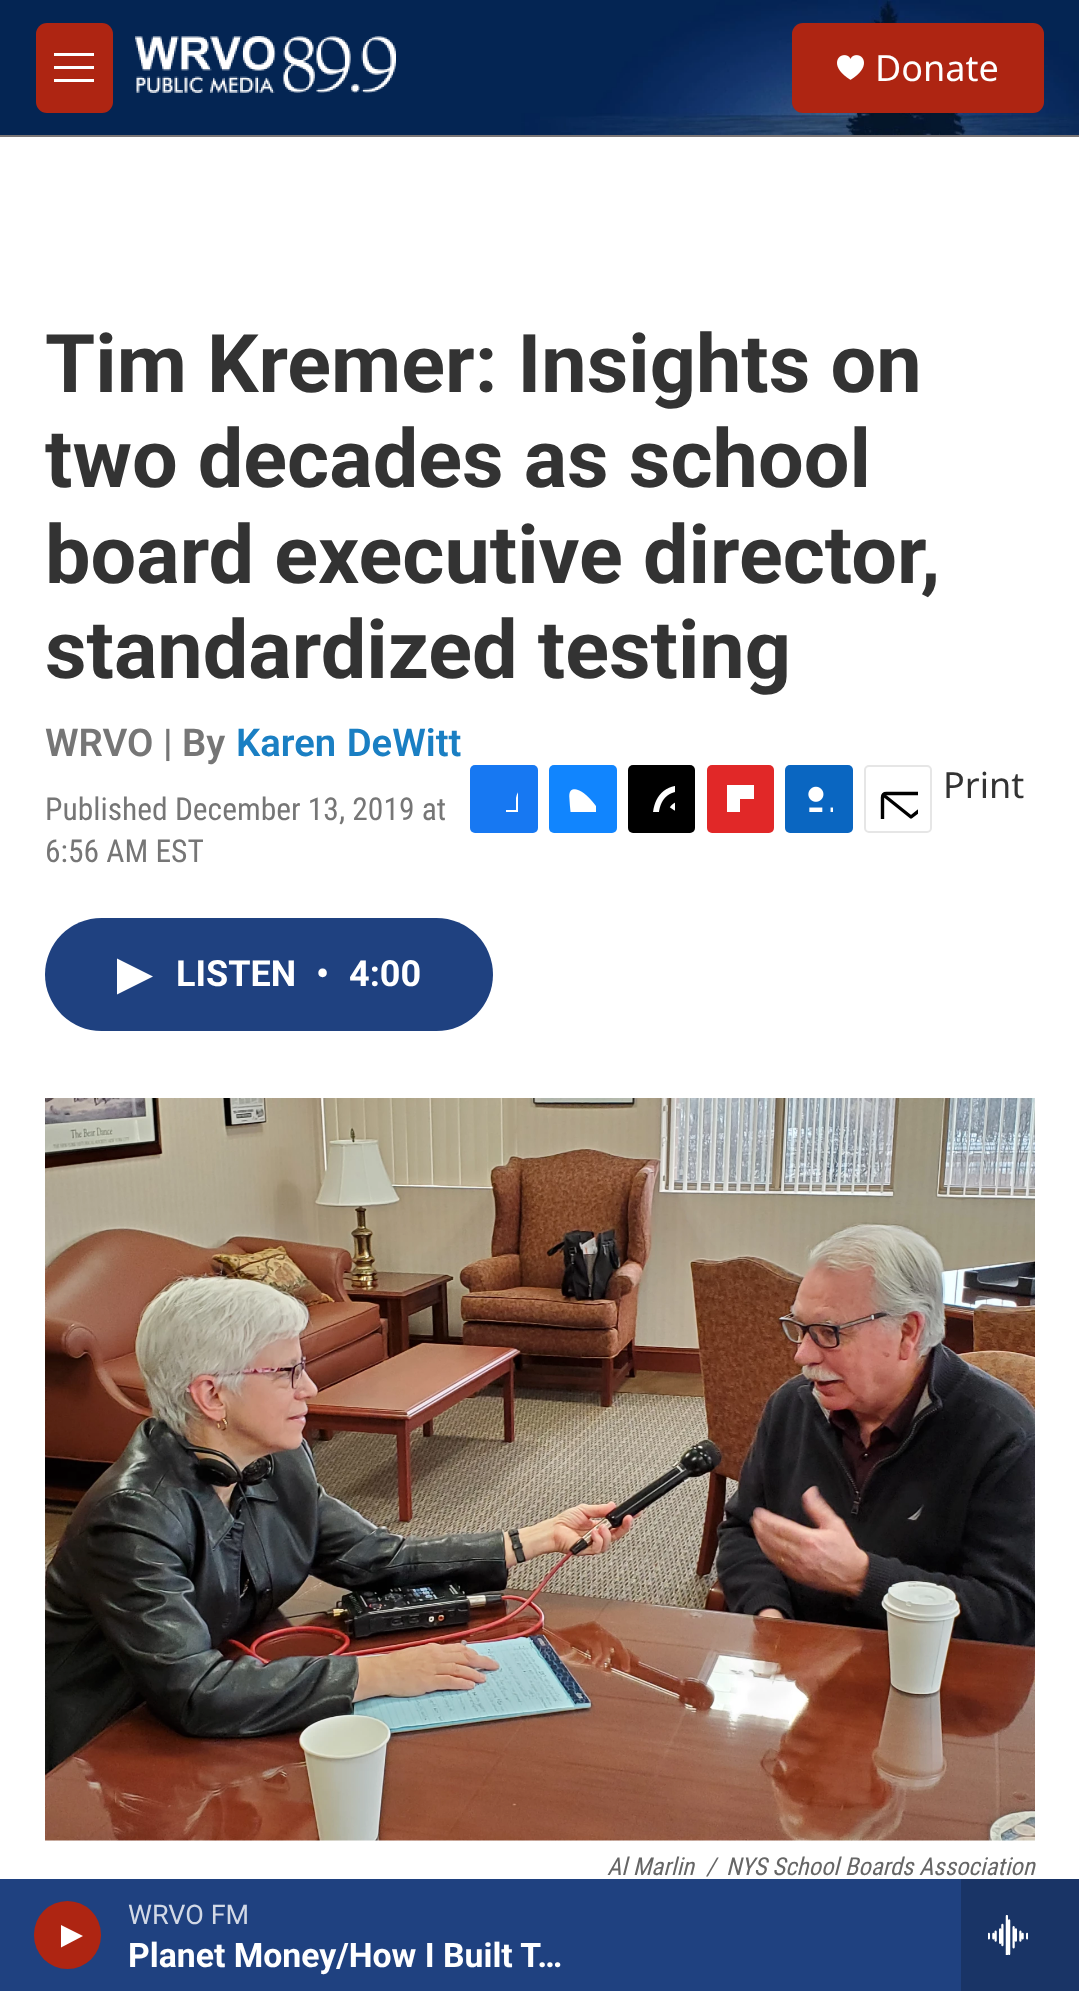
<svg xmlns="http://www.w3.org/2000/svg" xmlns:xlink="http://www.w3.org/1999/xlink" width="1079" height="1991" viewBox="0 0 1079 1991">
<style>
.cls-1{font:36px Noto Sans;fill:#ffffff}
.cls-2{font:27px Roboto;fill:#d2d9e6}
.cls-3{font:bold 33.75px 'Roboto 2';fill:#ffffff}
.cls-4{font:bold 81px Roboto;fill:#333333}
.cls-5{font:600 38.25px Roboto;fill:#767676}
.cls-6{font:600 38.25px Roboto;fill:#1a7fc3}
.cls-7{font:31.5px Roboto Condensed;fill:#767676}
.cls-8{font:36px Noto Sans;fill:#333333}
.cls-9{font:bold 36px 'Roboto 2';fill:#ffffff}
.cls-10{font:italic 24.75px Roboto Condensed;fill:#666666}
</style>
<defs>
<clipPath id="clip1"><rect x="491" y="785" width="27" height="27"/></clipPath>
<clipPath id="clip2"><rect x="727" y="785" width="27" height="27"/></clipPath>
<clipPath id="clip3"><rect x="878" y="779" width="40" height="40"/></clipPath>
</defs>
<rect width="100%" height="100%" fill="#ffffff"/>
<rect fill="#7a7575" x="0" y="135" width="1079" height="2"/>
<image xlink:href="image0.png" x="0" y="0" width="1079" height="135"/>
<rect fill="#ae2512" x="36" y="23" width="77" height="90" rx="11"/>
<path fill="#ffffff" fill-rule="evenodd" d="M54 69V66H94V69ZM54 56V53H94V56ZM54 82V79H94V82Z"/>
<image xlink:href="image1.png" x="135" y="36" width="261" height="57"/>
<rect fill="#ae2512" x="792" y="23" width="252" height="90" rx="11"/>
<image xlink:href="image2.png" x="837" y="55" width="27" height="25"/>
<rect fill="#1f4180" x="0" y="1879" width="961" height="112"/>
<rect fill="#ae2512" x="34" y="1901" width="67" height="68" rx="33.5"/>
<path fill="#ffffff" d="M61 1925L83 1936L61 1947.5Z"/>
<rect fill="#193466" x="961" y="1879" width="118" height="112"/>
<image xlink:href="image3.png" x="988" y="1915" width="40" height="40"/>
<rect fill="#1778f2" x="470" y="765" width="68" height="68" rx="5"/>
<g clip-path="url(#clip1)">
<path fill="#ffffff" d="M528 833H516V821H506V810H516V798C518 786 529 785 538 787V797C526 797 528 799 528 810H538L537 821H528Z"/>
</g>
<rect fill="#1185fe" x="549" y="765" width="68" height="68" rx="5"/>
<image xlink:href="image4.png" x="569" y="789" width="27" height="23"/>
<rect fill="#000000" x="628" y="765" width="67" height="68" rx="5"/>
<image xlink:href="image5.png" x="653" y="786" width="22" height="26"/>
<rect fill="#e12828" x="707" y="765" width="67" height="68" rx="5"/>
<g clip-path="url(#clip2)">
<path fill="#ffffff" fill-rule="evenodd" d="M727 785V833H740V799H774V785ZM774 812H767V826H754V833C777 833 774 835 774 812Z"/>
</g>
<rect fill="#0a66c1" x="785" y="765" width="68" height="68" rx="5"/>
<image xlink:href="image6.png" x="808" y="786" width="25" height="26"/>
<rect fill="none" stroke="#e6e6e6" stroke-width="2" x="865" y="766" width="66" height="66" rx="4"/>
<g clip-path="url(#clip3)">
<path fill="none" stroke="#000000" stroke-width="3.4" stroke-linecap="round" stroke-linejoin="round" d="M940 828C940 830 938.5 832 936 832H886.5C884 832 882.5 830 882.5 828V797.5C882.5 795 884 793.5 886.5 793.5H936C938.5 793.5 940 795 940 797.5ZM939 795L911 817L883.5 795"/>
</g>
<rect fill="#1f4180" x="45" y="918" width="448" height="113" rx="56.5"/>
<path fill="#ffffff" d="M117 958.5L153 976.5L117 994.5Z"/>
<image xlink:href="image7.png" x="45" y="1098" width="990" height="743"/>
<text class="cls-1" x="875" y="81">Donate</text>
<text class="cls-2" x="128" y="1924">WRVO FM</text>
<text class="cls-3" x="128" y="1967">Planet Money/How I Built T…</text>
<text class="cls-4"><tspan x="45" y="392">Tim Kremer: Insights on</tspan><tspan x="45" y="487">two decades as school</tspan><tspan x="45" y="583">board executive director,</tspan><tspan x="45" y="678">standardized testing</tspan></text>
<text class="cls-5" x="45" y="756">WRVO | By</text>
<text class="cls-6" x="236" y="756" word-spacing="1">Karen DeWitt</text>
<text class="cls-7"><tspan x="45" y="820">Published December 13, 2019 at</tspan><tspan x="45" y="862">6:56 AM EST</tspan></text>
<text class="cls-8" x="943" y="798">Print</text>
<text class="cls-9" x="176" y="986">LISTEN</text>
<text class="cls-9" x="316" y="986">•</text>
<text class="cls-9" x="349" y="986">4:00</text>
<text class="cls-10" x="607" y="1875">Al Marlin</text>
<text class="cls-10" x="706" y="1875">/</text>
<text class="cls-10" x="726" y="1875">NYS School Boards Association</text>
</svg>
